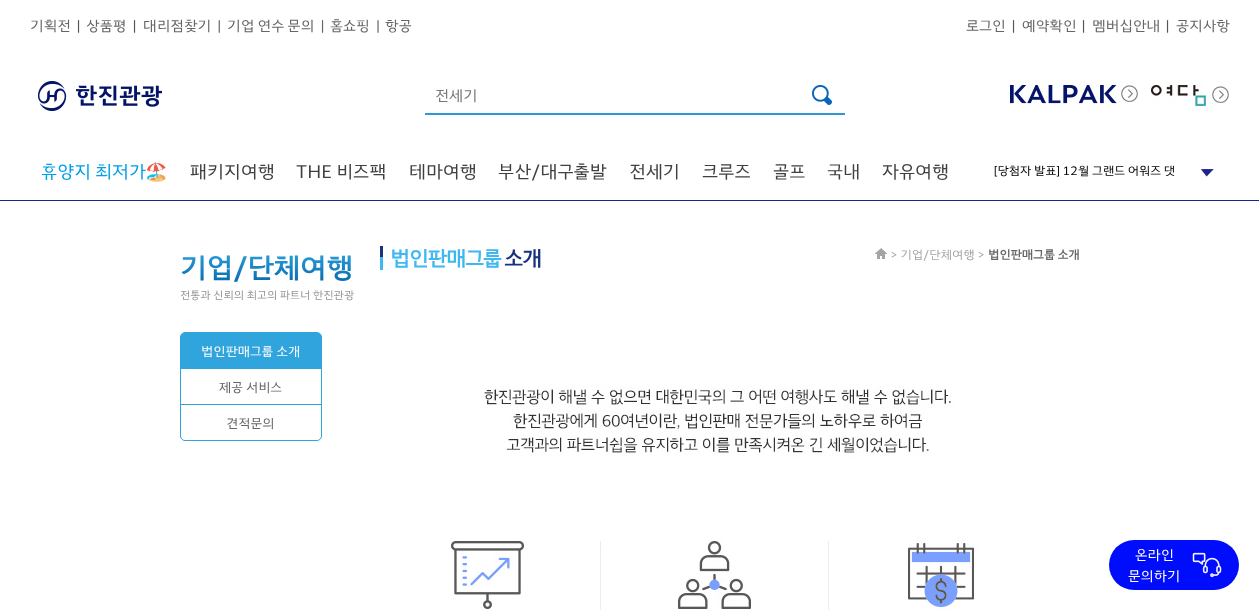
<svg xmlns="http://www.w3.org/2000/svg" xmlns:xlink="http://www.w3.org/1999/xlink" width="1259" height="610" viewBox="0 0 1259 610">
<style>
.cls-1{font:14.5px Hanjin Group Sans;fill:#666666}
.cls-2{font:14.5px Hanjin Group Sans;fill:#555555}
.cls-3{font:15px Hanjin Group Sans;fill:#777777}
.cls-4{font:18px Hanjin Group Sans;fill:#00a0e9}
.cls-5{font:18px Noto Color Emoji;fill:#404040}
.cls-6{font:18px Hanjin Group Sans;fill:#404040}
.cls-7{font:12px Hanjin Group Sans;fill:#000000}
.cls-8{font:bold 28px Hanjin Group Sans;fill:url(#g1)}
.cls-9{font:11px Hanjin Group Sans;fill:#949494}
.cls-10{font:13px Hanjin Group Sans;fill:#ffffff}
.cls-11{font:13px Hanjin Group Sans;fill:#666666}
.cls-12{font:bold 21px Hanjin Group Sans;letter-spacing:-1px;fill:#3fb8f1}
.cls-13{font:bold 21px Hanjin Group Sans;letter-spacing:-1px;fill:#18337e}
.cls-14{font:12px Hanjin Group Sans;fill:#a5a5a5}
.cls-15{font:bold 12px Hanjin Group Sans;fill:#666666}
.cls-16{font:14px Hanjin Group Sans;fill:#ffffff}
</style>
<defs>
<linearGradient id="g1" gradientUnits="userSpaceOnUse" x1="267" y1="246" x2="267" y2="286"><stop offset="0" stop-color="#31a9e4"/><stop offset="1" stop-color="#0466aa"/></linearGradient>
</defs>
<rect width="100%" height="100%" fill="#ffffff"/>
<image xlink:href="image0.png" x="38" y="81" width="124" height="30"/>
<rect fill="#2f98d2" x="425" y="113" width="420" height="2"/>
<image xlink:href="image1.png" x="812" y="85" width="20" height="20"/>
<image xlink:href="image2.png" x="1010" y="80" width="128" height="24"/>
<image xlink:href="image3.png" x="1149" y="79" width="80" height="32"/>
<rect fill="#1f248c" x="0" y="200" width="1259" height="1"/>
<image xlink:href="image4.png" x="1201" y="169" width="13" height="8"/>
<rect fill="none" stroke="#2fa4dd" x="180.5" y="332.5" width="141" height="108" rx="4.5"/>
<path fill="#2fa4dd" d="M184 333H318C319.5 333 321 334.5 321 336V369H181V336C181 334.5 182.5 333 184 333Z"/>
<rect fill="#2fa4dd" x="181" y="404" width="140" height="1"/>
<image xlink:href="image5.png" x="380" y="246" width="3" height="24"/>
<image xlink:href="image6.png" x="875" y="248" width="12" height="11"/>
<image xlink:href="image7.png" x="451" y="386" width="527" height="224"/>
<rect fill="#000dfd" x="1109" y="540" width="130" height="50" rx="25"/>
<image xlink:href="image8.png" x="1192" y="552" width="30" height="26"/>
<text class="cls-1" x="30" y="31">기획전</text>
<text class="cls-2" x="77" y="31">|</text>
<text class="cls-1" x="86" y="31">상품평</text>
<text class="cls-2" x="133" y="31">|</text>
<text class="cls-1" xml:space="preserve" x="143" y="31">대리점찾기  |</text>
<text class="cls-1" xml:space="preserve" x="227" y="31">기업 연수 문의  |</text>
<text class="cls-1" xml:space="preserve" x="330" y="31">홈쇼핑  |</text>
<text class="cls-1" x="385" y="31">항공</text>
<text class="cls-1" x="966" y="31">로그인</text>
<text class="cls-2" x="1012" y="31">|</text>
<text class="cls-1" x="1022" y="31">예약확인</text>
<text class="cls-2" x="1082" y="31">|</text>
<text class="cls-1" x="1092" y="31">멤버십안내</text>
<text class="cls-2" x="1166" y="31">|</text>
<text class="cls-1" x="1176" y="31">공지사항</text>
<text class="cls-3" x="435" y="101">전세기</text>
<text class="cls-4" x="41" y="178">휴양지 최저가</text>
<text class="cls-5" x="145" y="178">🏖️</text>
<text class="cls-6" x="190" y="178">패키지여행</text>
<text class="cls-6" x="296" y="178">THE 비즈팩</text>
<text class="cls-6" x="409" y="178">테마여행</text>
<text class="cls-6" x="498" y="178">부산/대구출발</text>
<text class="cls-6" x="629" y="178">전세기</text>
<text class="cls-6" x="702" y="178">크루즈</text>
<text class="cls-6" x="773" y="178">골프</text>
<text class="cls-6" x="827" y="178">국내</text>
<text class="cls-6" x="882" y="178">자유여행</text>
<text class="cls-7" x="994" y="175">[당첨자 발표] 12월 그랜드 어워즈 댓</text>
<text class="cls-8" x="180" y="278">기업/단체여행</text>
<text class="cls-9" x="180" y="299">전통과 신뢰의 최고의 파트너 한진관광</text>
<text class="cls-10" x="201" y="356">법인판매그룹 소개</text>
<text class="cls-11" x="219" y="392">제공 서비스</text>
<text class="cls-11" x="226" y="428">견적문의</text>
<text class="cls-12" x="390" y="266">법인판매그룹</text>
<text class="cls-13" x="504" y="266">소개</text>
<text class="cls-14" x="890" y="259">&gt; 기업/단체여행 &gt;</text>
<text class="cls-15" x="988" y="259">법인판매그룹 소개</text>
<text class="cls-16" x="1135" y="560">온라인</text>
<text class="cls-16" x="1128" y="581">문의하기</text>
</svg>
